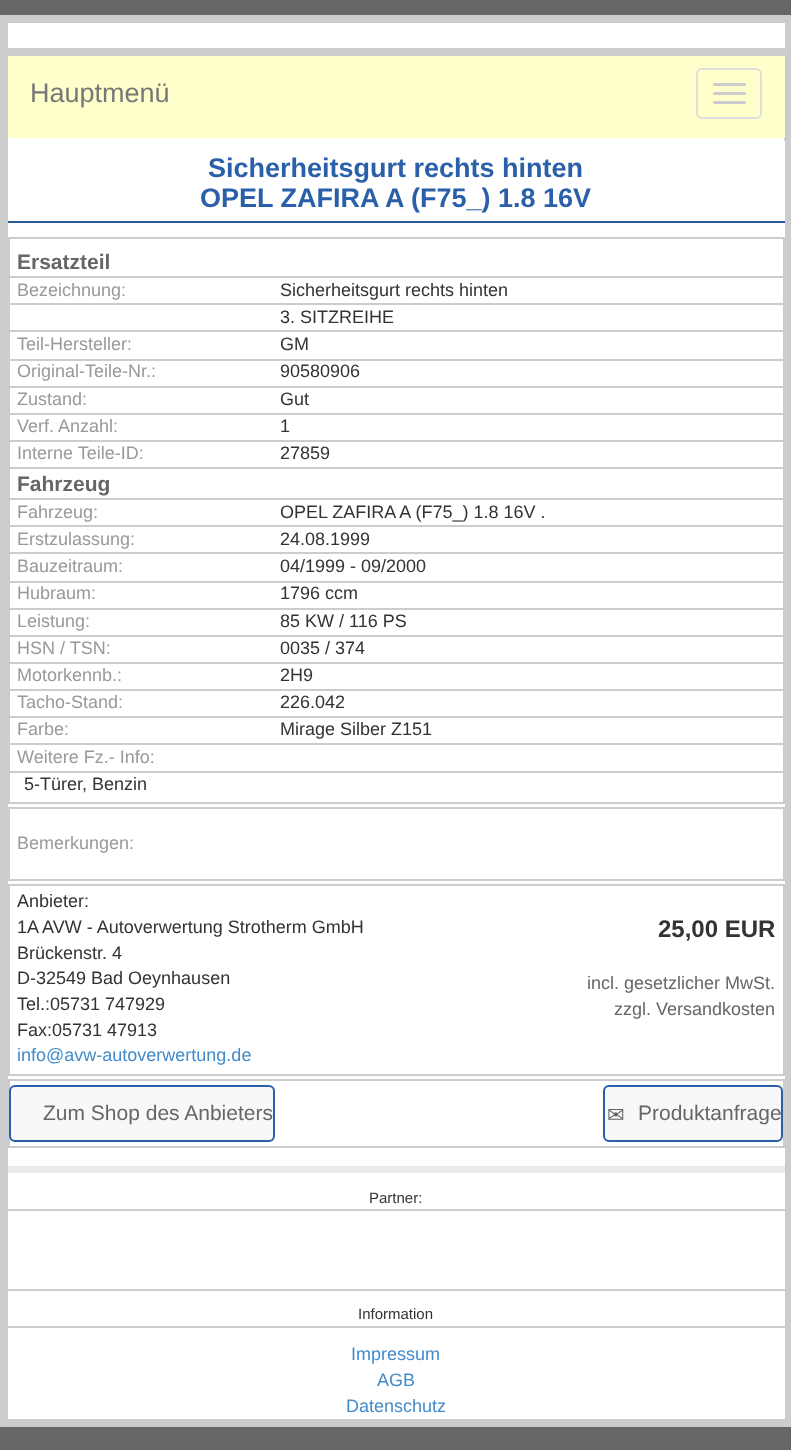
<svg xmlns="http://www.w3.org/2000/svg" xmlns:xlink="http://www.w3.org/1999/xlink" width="791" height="1450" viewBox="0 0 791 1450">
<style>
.cls-1{font:27px Liberation Sans;fill:#777777}
.cls-2{font:bold 27px Liberation Sans;fill:#2a5faa}
.cls-3{font:bold 21px Liberation Sans;fill:#666666}
.cls-4{font:18px Liberation Sans;fill:#999999}
.cls-5{font:18px Liberation Sans;fill:#333333}
.cls-6{font:18px Liberation Sans;fill:#428bca}
.cls-7{font:bold 24px Liberation Sans;fill:#333333}
.cls-8{font:18px Liberation Sans;fill:#666666}
.cls-9{font:21px Liberation Sans;fill:#666666}
.cls-10{font:21px DejaVu Sans;fill:#666666}
.cls-11{font:15px Liberation Sans;fill:#333333}
</style>
<rect width="100%" height="100%" fill="#666666"/>
<rect fill="#ffffff" x="8" y="138" width="776" height="3"/>
<rect fill="none" stroke="#cccccc" stroke-width="8" x="4" y="19" width="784" height="1404"/>
<rect fill="#cccccc" x="8" y="48" width="777" height="8"/>
<rect fill="#ffffff" x="8" y="23" width="777" height="25"/>
<rect fill="#ffffcc" x="8" y="56" width="777" height="82"/>
<rect fill="none" stroke="#dddddd" stroke-width="2" x="697" y="69" width="64" height="49" rx="5"/>
<rect fill="#cccccc" x="713" y="83" width="33" height="3" rx="1.5"/>
<rect fill="#cccccc" x="713" y="92" width="33" height="3" rx="1.5"/>
<rect fill="#cccccc" x="713" y="101" width="33" height="3" rx="1.5"/>
<rect fill="#ffffff" x="8" y="141" width="777" height="1025"/>
<rect fill="#26599d" x="8" y="221" width="777" height="2"/>
<rect fill="none" stroke="#cccccc" stroke-width="2" x="9" y="238" width="775" height="565"/>
<rect fill="#cccccc" x="9" y="276" width="774" height="2"/>
<rect fill="#cccccc" x="9" y="303" width="774" height="2"/>
<rect fill="#cccccc" x="9" y="330" width="774" height="2"/>
<rect fill="#cccccc" x="9" y="359" width="774" height="2"/>
<rect fill="#cccccc" x="9" y="386" width="774" height="2"/>
<rect fill="#cccccc" x="9" y="413" width="774" height="2"/>
<rect fill="#cccccc" x="9" y="440" width="774" height="2"/>
<rect fill="#cccccc" x="9" y="467" width="774" height="2"/>
<rect fill="#cccccc" x="9" y="498" width="774" height="2"/>
<rect fill="#cccccc" x="9" y="525" width="774" height="2"/>
<rect fill="#cccccc" x="9" y="552" width="774" height="2"/>
<rect fill="#cccccc" x="9" y="581" width="774" height="2"/>
<rect fill="#cccccc" x="9" y="608" width="774" height="2"/>
<rect fill="#cccccc" x="9" y="635" width="774" height="2"/>
<rect fill="#cccccc" x="9" y="662" width="774" height="2"/>
<rect fill="#cccccc" x="9" y="689" width="774" height="2"/>
<rect fill="#cccccc" x="9" y="716" width="774" height="2"/>
<rect fill="#cccccc" x="9" y="743" width="774" height="2"/>
<rect fill="#cccccc" x="9" y="771" width="774" height="2"/>
<rect fill="none" stroke="#cccccc" stroke-width="2" x="9" y="808" width="775" height="72"/>
<rect fill="none" stroke="#cccccc" stroke-width="2" x="9" y="885" width="775" height="190"/>
<rect fill="none" stroke="#cccccc" stroke-width="2" x="9" y="1080" width="775" height="67"/>
<rect fill="#f8f8f8" stroke="#2a5faa" stroke-width="2" x="10" y="1086" width="264" height="55" rx="5"/>
<rect fill="#f8f8f8" stroke="#2a5faa" stroke-width="2" x="604" y="1086" width="178" height="55" rx="5"/>
<rect fill="#ffffff" x="8" y="1173" width="777" height="246"/>
<rect fill="#eaeaea" x="8" y="1166" width="777" height="7"/>
<rect fill="#cccccc" x="8" y="1209" width="777" height="2"/>
<rect fill="#cccccc" x="8" y="1289" width="777" height="2"/>
<rect fill="#cccccc" x="8" y="1326" width="777" height="2"/>
<text class="cls-1" x="30" y="102">Hauptmenü</text>
<text class="cls-2" x="208" y="177">Sicherheitsgurt rechts hinten</text>
<text class="cls-2" x="200" y="207">OPEL ZAFIRA A (F75_) 1.8 16V</text>
<text class="cls-3" x="17" y="269">Ersatzteil</text>
<text class="cls-4" x="17" y="296">Bezeichnung:</text>
<text class="cls-5"><tspan x="280" y="296">Sicherheitsgurt rechts hinten</tspan><tspan x="280" y="323">3. SITZREIHE</tspan></text>
<text class="cls-4" x="17" y="350">Teil-Hersteller:</text>
<text class="cls-5" x="280" y="350">GM</text>
<text class="cls-4" x="17" y="377">Original-Teile-Nr.:</text>
<text class="cls-5" x="280" y="377">90580906</text>
<text class="cls-4" x="17" y="405">Zustand:</text>
<text class="cls-5" x="280" y="405">Gut</text>
<text class="cls-4" x="17" y="432">Verf. Anzahl:</text>
<text class="cls-5" x="280" y="432">1</text>
<text class="cls-4" x="17" y="459">Interne Teile-ID:</text>
<text class="cls-5" x="280" y="459">27859</text>
<text class="cls-3" x="17" y="491">Fahrzeug</text>
<text class="cls-4" x="17" y="518">Fahrzeug:</text>
<text class="cls-5" x="280" y="518">OPEL ZAFIRA A (F75_) 1.8 16V .</text>
<text class="cls-4" x="17" y="545">Erstzulassung:</text>
<text class="cls-5" x="280" y="545">24.08.1999</text>
<text class="cls-4" x="17" y="572">Bauzeitraum:</text>
<text class="cls-5" x="280" y="572">04/1999 - 09/2000</text>
<text class="cls-4" x="17" y="599">Hubraum:</text>
<text class="cls-5" x="280" y="599">1796 ccm</text>
<text class="cls-4" x="17" y="627">Leistung:</text>
<text class="cls-5" x="280" y="627">85 KW / 116 PS</text>
<text class="cls-4" x="17" y="654">HSN / TSN:</text>
<text class="cls-5" x="280" y="654">0035 / 374</text>
<text class="cls-4" x="17" y="681">Motorkennb.:</text>
<text class="cls-5" x="280" y="681">2H9</text>
<text class="cls-4" x="17" y="708">Tacho-Stand:</text>
<text class="cls-5" x="280" y="708">226.042</text>
<text class="cls-4" x="17" y="735">Farbe:</text>
<text class="cls-5" x="280" y="735">Mirage Silber Z151</text>
<text class="cls-4" x="17" y="763">Weitere Fz.- Info:</text>
<text class="cls-5" x="24" y="790">5-Türer, Benzin</text>
<text class="cls-4" x="17" y="849">Bemerkungen:</text>
<text class="cls-5"><tspan x="17" y="907">Anbieter:</tspan><tspan x="17" y="933">1A AVW - Autoverwertung Strotherm GmbH</tspan><tspan x="17" y="959">Brückenstr. 4</tspan><tspan x="17" y="984">D-32549 Bad Oeynhausen</tspan><tspan x="17" y="1010">Tel.:05731 747929</tspan><tspan x="17" y="1036">Fax:05731 47913</tspan></text>
<text class="cls-6" x="17" y="1061">info@avw-autoverwertung.de</text>
<text class="cls-7" x="658" y="937">25,00 EUR</text>
<text class="cls-8" x="587" y="989">incl. gesetzlicher MwSt.</text>
<text class="cls-8" x="614" y="1015">zzgl. Versandkosten</text>
<text class="cls-9" x="43" y="1120">Zum Shop des Anbieters</text>
<text class="cls-10" x="607" y="1122">✉</text>
<text class="cls-9" x="638" y="1120">Produktanfrage</text>
<text class="cls-11" x="369" y="1203">Partner:</text>
<text class="cls-11" x="358" y="1319">Information</text>
<text class="cls-6" x="351" y="1360">Impressum</text>
<text class="cls-6" x="377" y="1386">AGB</text>
<text class="cls-6" x="346" y="1412">Datenschutz</text>
</svg>
